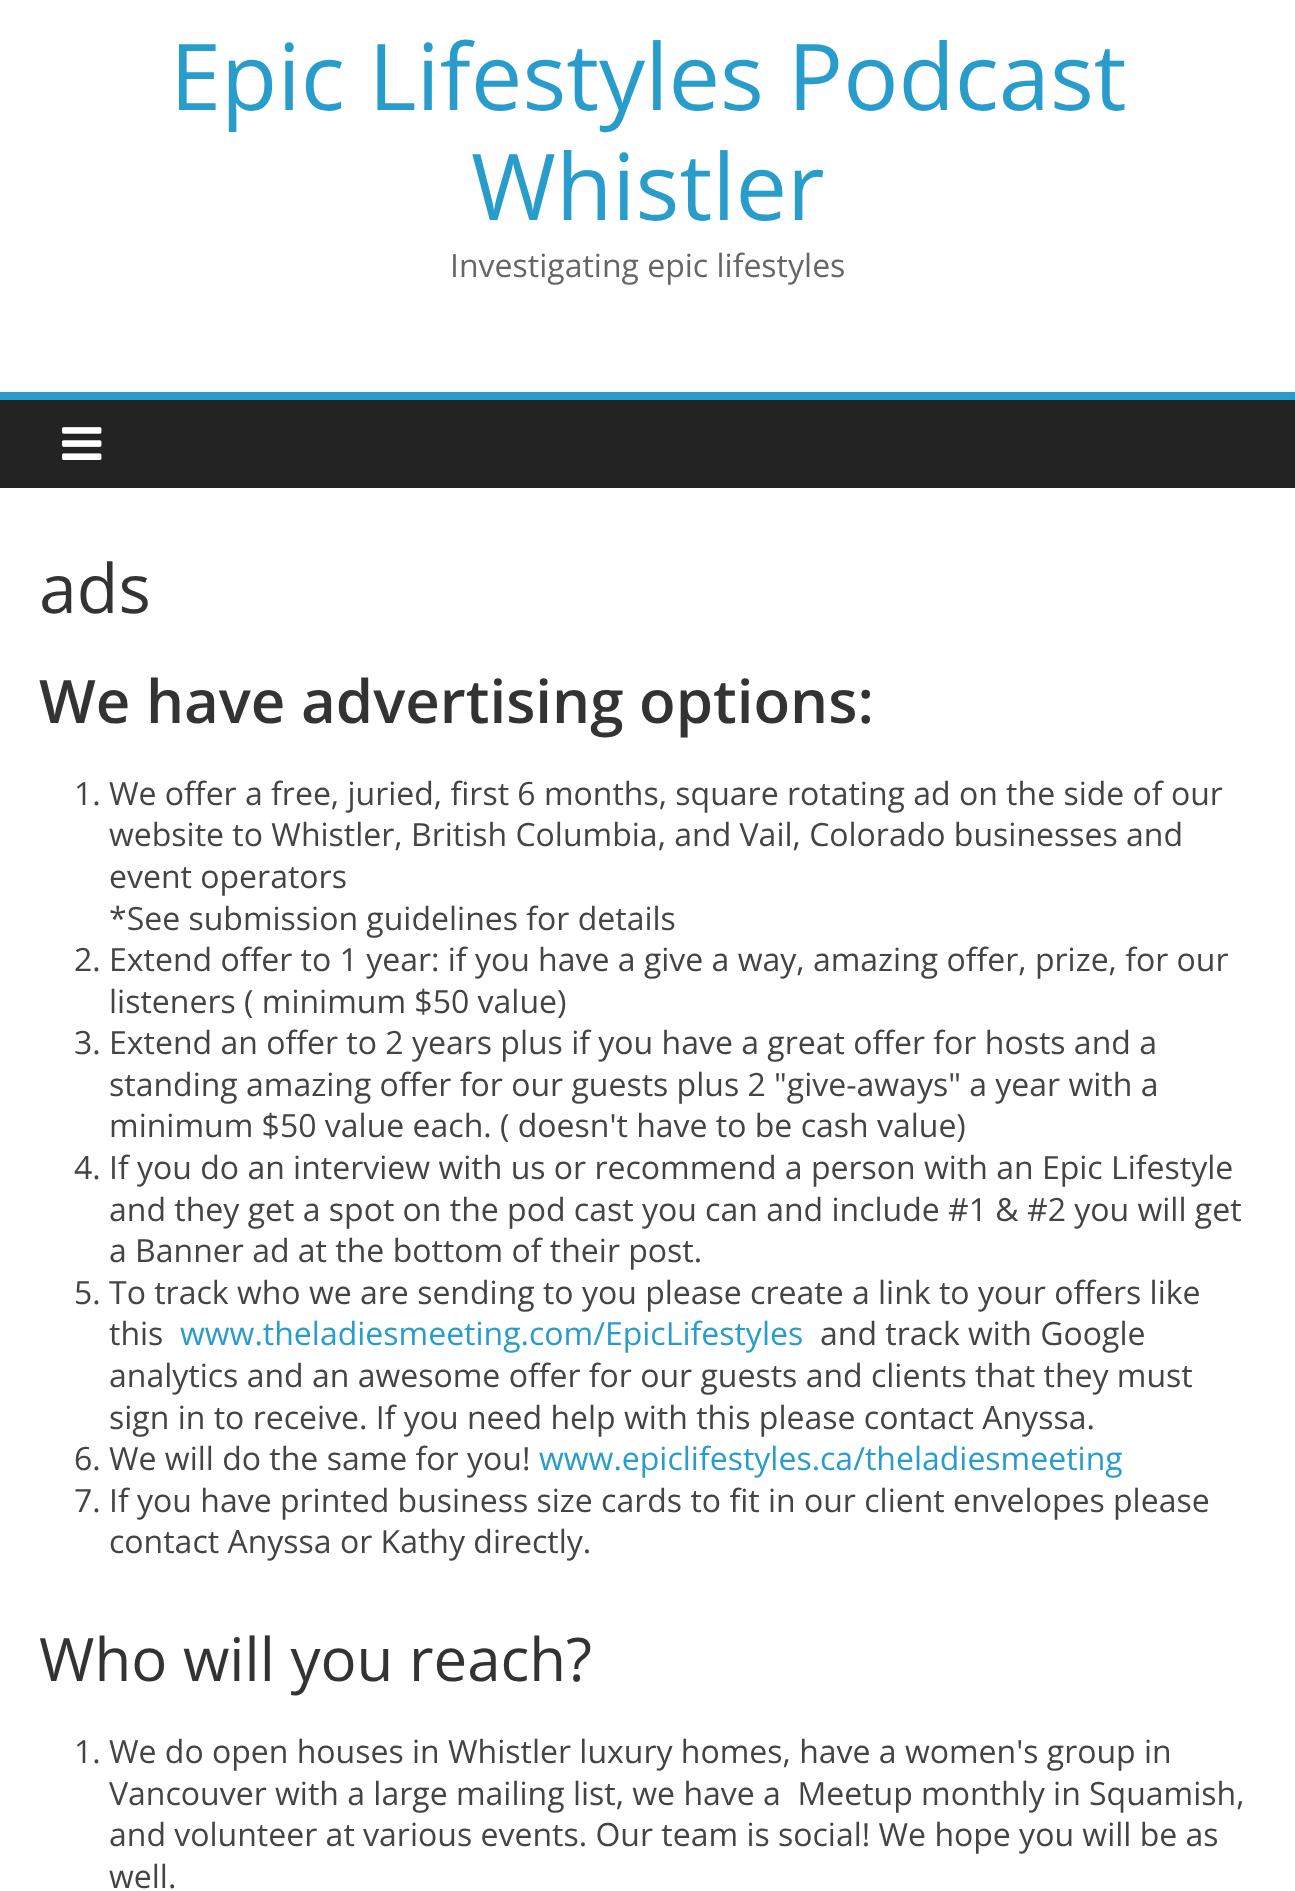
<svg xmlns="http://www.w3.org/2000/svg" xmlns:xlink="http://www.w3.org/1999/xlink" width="1295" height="1891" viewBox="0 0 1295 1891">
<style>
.cls-1{font:92px Open Sans;fill:#289dcc}
.cls-2{font:32px Open Sans;fill:#666666}
.cls-3{font:68px Open Sans;fill:#333333}
.cls-4{font:600 60px Open Sans;fill:#333333}
.cls-5{font:32px Open Sans;fill:#444444}
.cls-6{font:32px Open Sans;fill:#289dcc}
.cls-7{font:60px Open Sans;fill:#333333}
</style>
<rect width="100%" height="100%" fill="#ffffff"/>
<rect fill="#232323" x="0" y="400" width="1295" height="88"/>
<rect fill="#289dcc" x="0" y="392" width="1295" height="8"/>
<image xlink:href="image0.png" x="62" y="427" width="40" height="33"/>
<text class="cls-1" x="170" y="110">Epic Lifestyles Podcast</text>
<text class="cls-1" x="471" y="220">Whistler</text>
<text class="cls-2" x="450" y="277">Investigating epic lifestyles</text>
<text class="cls-3" x="39" y="613">ads</text>
<text class="cls-4" x="39" y="723">We have advertising options:</text>
<text class="cls-5" x="74" y="805">1. We offer a free, juried, first 6 months, square rotating ad on the side of our</text>
<text class="cls-5"><tspan x="109" y="846">website to Whistler, British Columbia, and Vail, Colorado businesses and</tspan><tspan x="109" y="888">event operators</tspan><tspan x="109" y="930">*See submission guidelines for details</tspan></text>
<text class="cls-5" x="74" y="971">2. Extend offer to 1 year: if you have a give a way, amazing offer, prize, for our</text>
<text class="cls-5" x="109" y="1013">listeners ( minimum $50 value)</text>
<text class="cls-5" x="74" y="1054">3. Extend an offer to 2 years plus if you have a great offer for hosts and a</text>
<text class="cls-5"><tspan x="109" y="1096">standing amazing offer for our guests plus 2 "give-aways" a year with a</tspan><tspan x="109" y="1137">minimum $50 value each. ( doesn't have to be cash value)</tspan></text>
<text class="cls-5" x="74" y="1179">4. If you do an interview with us or recommend a person with an Epic Lifestyle</text>
<text class="cls-5"><tspan x="109" y="1221">and they get a spot on the pod cast you can and include #1 &amp; #2 you will get</tspan><tspan x="109" y="1262">a Banner ad at the bottom of their post.</tspan></text>
<text class="cls-5" x="74" y="1304">5. To track who we are sending to you please create a link to your offers like</text>
<text class="cls-5" x="109" y="1345">this</text>
<text class="cls-6" x="180" y="1345">www.theladiesmeeting.com/EpicLifestyles</text>
<text class="cls-5" x="820" y="1345">and track with Google</text>
<text class="cls-5"><tspan x="109" y="1387">analytics and an awesome offer for our guests and clients that they must</tspan><tspan x="109" y="1429">sign in to receive. If you need help with this please contact Anyssa.</tspan></text>
<text class="cls-5" x="74" y="1470">6. We will do the same for you!</text>
<text class="cls-6" x="539" y="1470">www.epiclifestyles.ca/theladiesmeeting</text>
<text class="cls-5" x="74" y="1512">7. If you have printed business size cards to fit in our client envelopes please</text>
<text class="cls-5" x="109" y="1553">contact Anyssa or Kathy directly.</text>
<text class="cls-7" x="39" y="1681">Who will you reach?</text>
<text class="cls-5" x="74" y="1763">1. We do open houses in Whistler luxury homes, have a women's group in</text>
<text class="cls-5" xml:space="preserve"><tspan x="109" y="1805">Vancouver with a large mailing list, we have a  Meetup monthly in Squamish,</tspan><tspan x="109" y="1846">and volunteer at various events. Our team is social! We hope you will be as</tspan><tspan x="109" y="1888">well.</tspan></text>
</svg>
